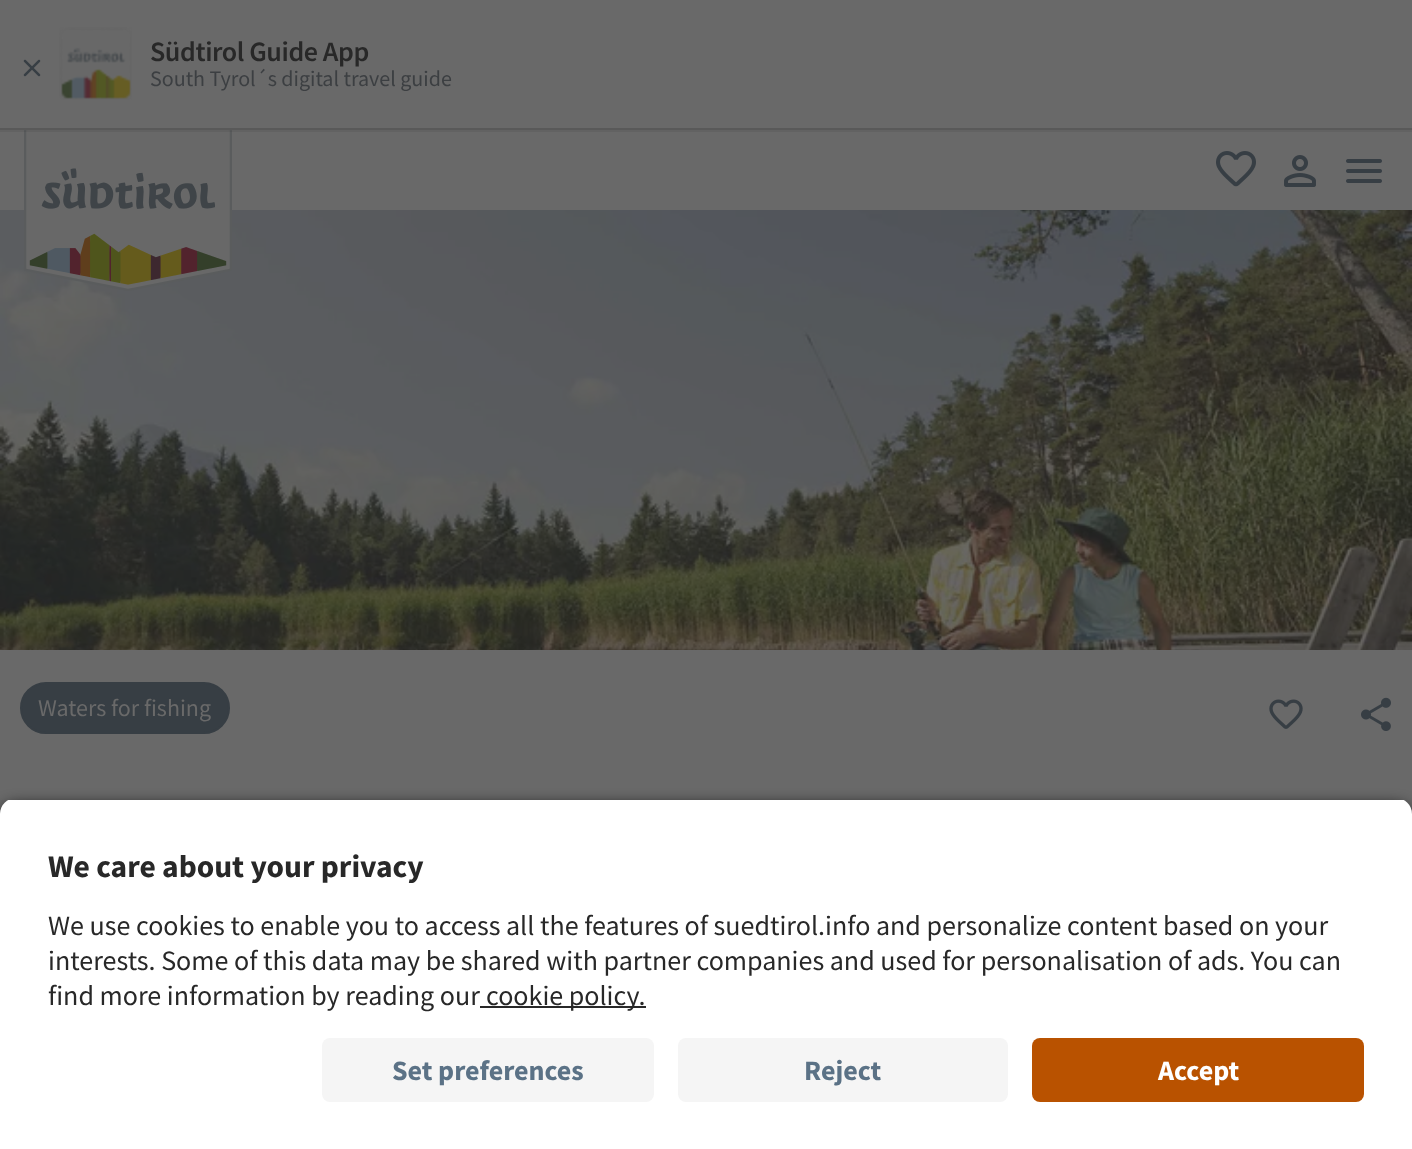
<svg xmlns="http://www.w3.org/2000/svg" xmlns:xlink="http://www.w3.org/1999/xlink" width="1412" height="1149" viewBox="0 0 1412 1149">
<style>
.cls-1{font:600 28px Source Sans Pro;letter-spacing:-0.4px;fill:#282828}
.cls-2{font:22px Source Sans Pro;fill:#3c3f42}
.cls-3{font:24px Source Sans Pro;fill:#696969}
.cls-4{font:bold 31.5px Source Sans Pro;fill:#282828}
.cls-5{font:28px Source Sans Pro;fill:#282828}
.cls-6{font:bold 28px Source Sans Pro;fill:#5b7286}
.cls-7{font:bold 28px Source Sans Pro;fill:#ffffff}
</style>
<defs>
<clipPath id="clip1"><path d="M16 798H1396C1405 798 1412 805 1412 814V1022H0V814C0 805 7 798 16 798Z"/></clipPath>
</defs>
<rect width="100%" height="100%" fill="#696969"/>
<image xlink:href="image6.png" x="0" y="210" width="1412" height="440"/>
<image xlink:href="image2.png" x="24" y="130" width="208" height="161"/>
<rect fill="#1c1c1c" fill-opacity="0.09" x="0" y="130" width="1412" height="2"/>
<rect fill="#595959" x="0" y="128" width="1412" height="2"/>
<image xlink:href="image0.png" x="23" y="59" width="18" height="18"/>
<image xlink:href="image1.png" x="59" y="27" width="73" height="73"/>
<image xlink:href="image3.png" x="1216" y="151" width="40" height="36"/>
<image xlink:href="image4.png" x="1284" y="155" width="32" height="32"/>
<image xlink:href="image5.png" x="1346" y="159" width="36" height="24"/>
<rect fill="#373e44" stroke="#373e44" stroke-width="2" x="21" y="683" width="208" height="50" rx="25"/>
<image xlink:href="image7.png" x="1269" y="699" width="34" height="30"/>
<image xlink:href="image8.png" x="1361" y="697" width="30" height="34"/>
<rect fill="#000000" fill-opacity="0.8" filter="blur(7px)" x="0" y="804" width="1412" height="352" rx="16"/>
<g clip-path="url(#clip1)">
<rect fill="#ffffff" x="0" y="800" width="1412" height="222"/>
</g>
<rect fill="#282828" x="480" y="1006" width="166" height="2"/>
<rect fill="#ffffff" x="0" y="1022" width="1412" height="127"/>
<rect fill="#f5f5f5" x="322" y="1038" width="332" height="64" rx="8"/>
<rect fill="#f5f5f5" x="678" y="1038" width="330" height="64" rx="8"/>
<rect fill="#b95200" x="1032" y="1038" width="332" height="64" rx="8"/>
<text class="cls-1" x="150" y="61">Südtirol Guide App</text>
<text class="cls-2" x="150" y="86">South Tyrol´s digital travel guide</text>
<text class="cls-3" x="38" y="716">Waters for fishing</text>
<text class="cls-4" x="48" y="877">We care about your privacy</text>
<text class="cls-5"><tspan x="48" y="935">We use cookies to enable you to access all the features of suedtirol.info and personalize content based on your</tspan><tspan x="48" y="970">interests. Some of this data may be shared with partner companies and used for personalisation of ads. You can</tspan><tspan x="48" y="1005">find more information by reading our</tspan></text>
<text class="cls-5" x="486" y="1005">cookie policy.</text>
<text class="cls-6" x="392" y="1080">Set preferences</text>
<text class="cls-6" x="804" y="1080">Reject</text>
<text class="cls-7" x="1158" y="1080">Accept</text>
</svg>
